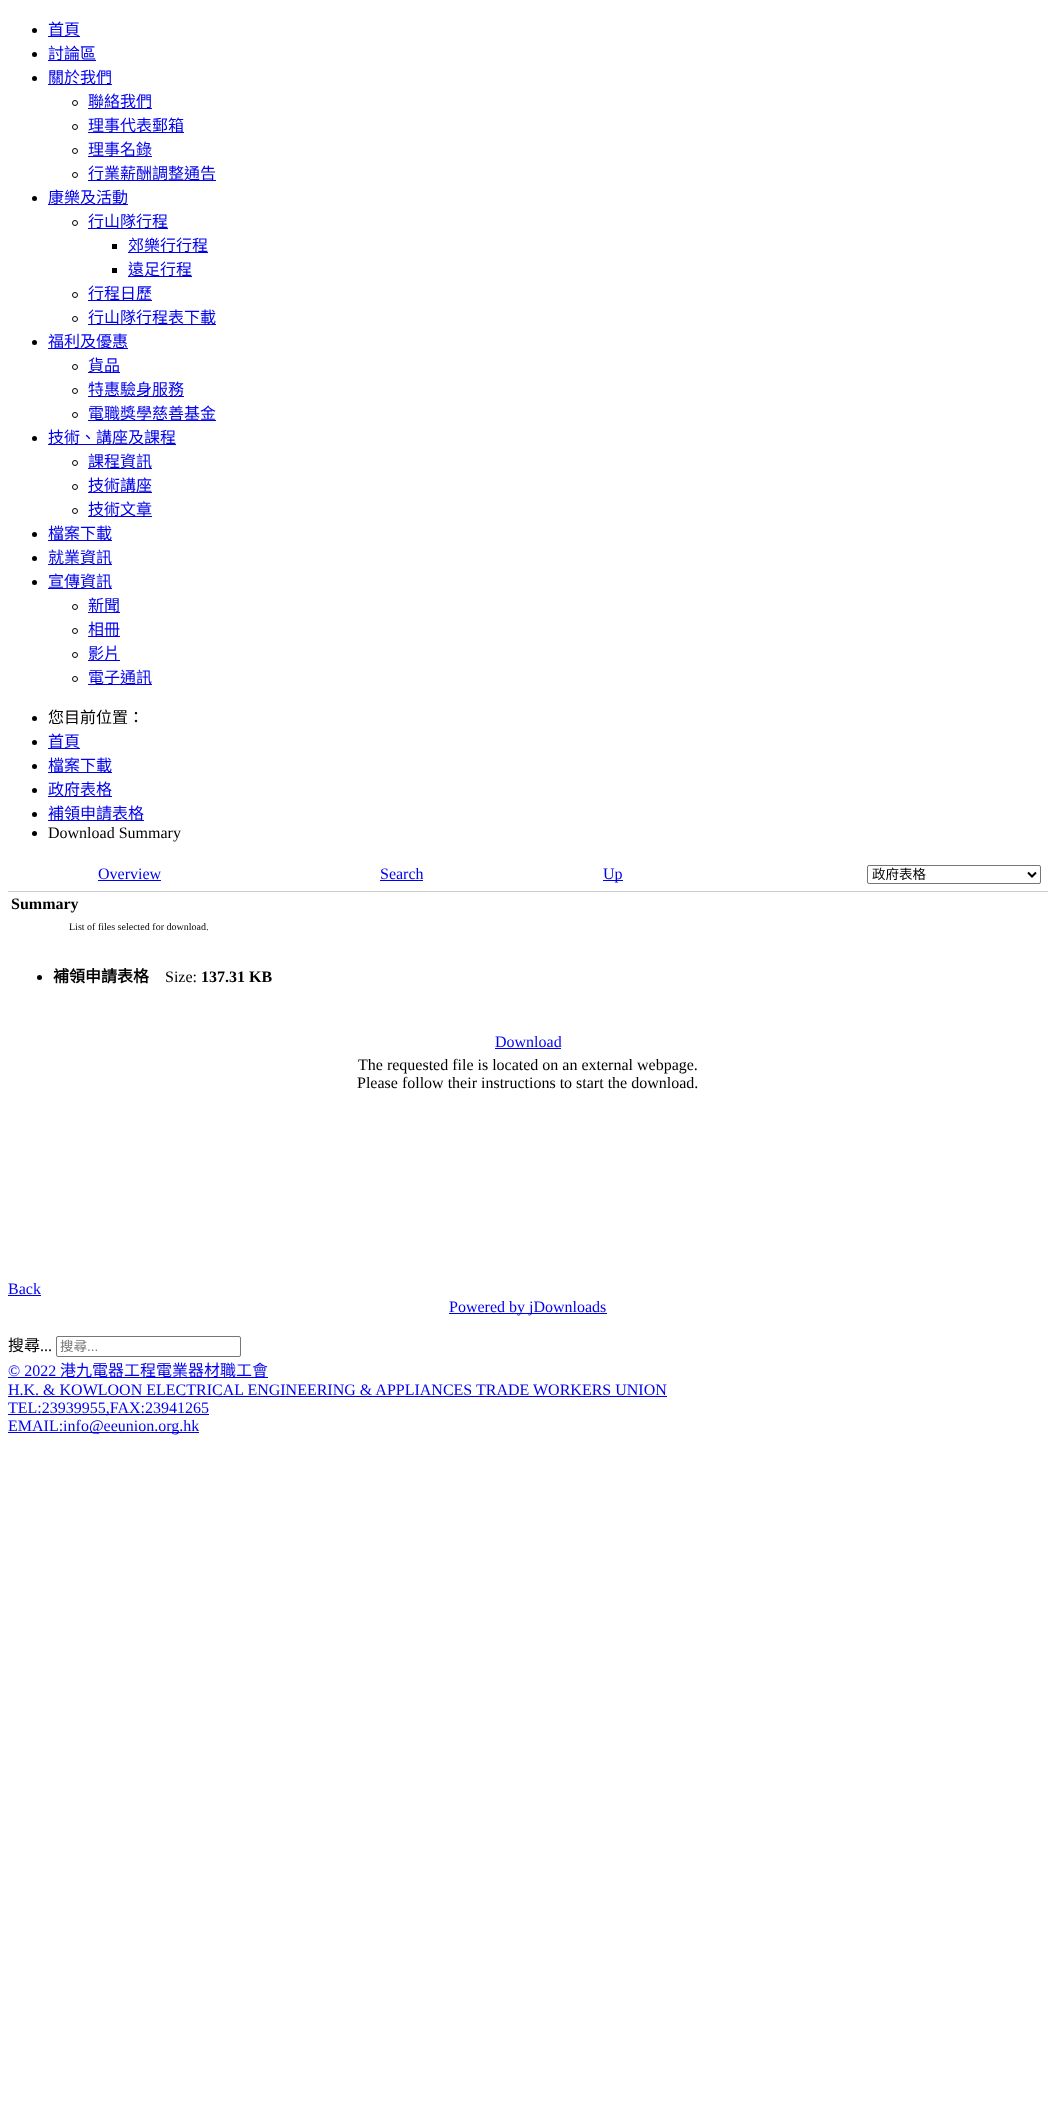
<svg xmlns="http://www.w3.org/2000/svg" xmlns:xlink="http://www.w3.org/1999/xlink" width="1056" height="2122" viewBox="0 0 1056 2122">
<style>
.cls-1{font:16px Noto Sans CJK TC;fill:#0000ee}
.cls-2{font:16px Noto Sans CJK TC;fill:#000000}
.cls-3{font:16px Liberation Serif;fill:#000000}
.cls-4{font:16px Liberation Serif;fill:#0000ee}
.cls-5{font:13.5px Noto Sans CJK TC;fill:#000000}
.cls-6{font:bold 16px Liberation Serif;fill:#000000}
.cls-7{font:10px Liberation Serif;fill:#000000}
.cls-8{font:bold 16px Noto Sans CJK TC;fill:#000000}
.cls-9{font:13.5px Noto Sans CJK TC;fill:#757575}
.cls-10{font:13.5px Liberation Sans;fill:#757575}
</style>
<rect width="100%" height="100%" fill="#ffffff"/>
<circle fill="#000000" cx="34.5" cy="30.5" r="2.5"/>
<rect fill="#0000ee" x="48" y="36" width="32" height="1"/>
<circle fill="#000000" cx="34.5" cy="54.5" r="2.5"/>
<rect fill="#0000ee" x="48" y="60" width="48" height="1"/>
<circle fill="#000000" cx="34.5" cy="78.5" r="2.5"/>
<rect fill="#0000ee" x="48" y="84" width="64" height="1"/>
<circle fill="none" stroke="#000000" cx="75" cy="103" r="2.5"/>
<rect fill="#0000ee" x="88" y="108" width="64" height="1"/>
<circle fill="none" stroke="#000000" cx="75" cy="127" r="2.5"/>
<rect fill="#0000ee" x="88" y="132" width="96" height="1"/>
<circle fill="none" stroke="#000000" cx="75" cy="151" r="2.5"/>
<rect fill="#0000ee" x="88" y="156" width="64" height="1"/>
<circle fill="none" stroke="#000000" cx="75" cy="175" r="2.5"/>
<rect fill="#0000ee" x="88" y="180" width="128" height="1"/>
<circle fill="#000000" cx="34.5" cy="198.5" r="2.5"/>
<rect fill="#0000ee" x="48" y="204" width="80" height="1"/>
<circle fill="none" stroke="#000000" cx="75" cy="223" r="2.5"/>
<rect fill="#0000ee" x="88" y="228" width="80" height="1"/>
<rect fill="#000000" x="112" y="244" width="5" height="5"/>
<rect fill="#0000ee" x="128" y="252" width="80" height="1"/>
<rect fill="#000000" x="112" y="268" width="5" height="5"/>
<rect fill="#0000ee" x="128" y="276" width="64" height="1"/>
<circle fill="none" stroke="#000000" cx="75" cy="295" r="2.5"/>
<rect fill="#0000ee" x="88" y="300" width="64" height="1"/>
<circle fill="none" stroke="#000000" cx="75" cy="319" r="2.5"/>
<rect fill="#0000ee" x="88" y="324" width="128" height="1"/>
<circle fill="#000000" cx="34.5" cy="342.5" r="2.5"/>
<rect fill="#0000ee" x="48" y="348" width="80" height="1"/>
<circle fill="none" stroke="#000000" cx="75" cy="367" r="2.5"/>
<rect fill="#0000ee" x="88" y="372" width="32" height="1"/>
<circle fill="none" stroke="#000000" cx="75" cy="391" r="2.5"/>
<rect fill="#0000ee" x="88" y="396" width="96" height="1"/>
<circle fill="none" stroke="#000000" cx="75" cy="415" r="2.5"/>
<rect fill="#0000ee" x="88" y="420" width="128" height="1"/>
<circle fill="#000000" cx="34.5" cy="438.5" r="2.5"/>
<rect fill="#0000ee" x="48" y="444" width="128" height="1"/>
<circle fill="none" stroke="#000000" cx="75" cy="463" r="2.5"/>
<rect fill="#0000ee" x="88" y="468" width="64" height="1"/>
<circle fill="none" stroke="#000000" cx="75" cy="487" r="2.5"/>
<rect fill="#0000ee" x="88" y="492" width="64" height="1"/>
<circle fill="none" stroke="#000000" cx="75" cy="511" r="2.5"/>
<rect fill="#0000ee" x="88" y="516" width="64" height="1"/>
<circle fill="#000000" cx="34.5" cy="534.5" r="2.5"/>
<rect fill="#0000ee" x="48" y="540" width="64" height="1"/>
<circle fill="#000000" cx="34.5" cy="558.5" r="2.5"/>
<rect fill="#0000ee" x="48" y="564" width="64" height="1"/>
<circle fill="#000000" cx="34.5" cy="582.5" r="2.5"/>
<rect fill="#0000ee" x="48" y="588" width="64" height="1"/>
<circle fill="none" stroke="#000000" cx="75" cy="607" r="2.5"/>
<rect fill="#0000ee" x="88" y="612" width="32" height="1"/>
<circle fill="none" stroke="#000000" cx="75" cy="631" r="2.5"/>
<rect fill="#0000ee" x="88" y="636" width="32" height="1"/>
<circle fill="none" stroke="#000000" cx="75" cy="655" r="2.5"/>
<rect fill="#0000ee" x="88" y="660" width="32" height="1"/>
<circle fill="none" stroke="#000000" cx="75" cy="679" r="2.5"/>
<rect fill="#0000ee" x="88" y="684" width="64" height="1"/>
<circle fill="#000000" cx="34.5" cy="718.5" r="2.5"/>
<circle fill="#000000" cx="34.5" cy="742.5" r="2.5"/>
<rect fill="#0000ee" x="48" y="748" width="32" height="1"/>
<circle fill="#000000" cx="34.5" cy="766.5" r="2.5"/>
<rect fill="#0000ee" x="48" y="772" width="64" height="1"/>
<circle fill="#000000" cx="34.5" cy="790.5" r="2.5"/>
<rect fill="#0000ee" x="48" y="796" width="64" height="1"/>
<circle fill="#000000" cx="34.5" cy="814.5" r="2.5"/>
<rect fill="#0000ee" x="48" y="820" width="96" height="1"/>
<circle fill="#000000" cx="34.5" cy="833.5" r="2.5"/>
<rect fill="#cccccc" x="8" y="891" width="1040" height="1"/>
<rect fill="#0000ee" x="98" y="880" width="63" height="1"/>
<rect fill="#0000ee" x="380" y="880" width="43" height="1"/>
<rect fill="#0000ee" x="603" y="880" width="20" height="1"/>
<rect fill="none" stroke="#767676" x="867.5" y="865.5" width="173" height="18" rx="1.5"/>
<path fill="none" stroke="#000000" stroke-width="2" d="M1028 872.5L1032 876.5L1036 872.5"/>
<circle fill="#000000" cx="39.5" cy="977.5" r="2.5"/>
<rect fill="#0000ee" x="495" y="1048" width="66" height="1"/>
<rect fill="#0000ee" x="8" y="1295" width="33" height="1"/>
<rect fill="#0000ee" x="449" y="1313" width="158" height="1"/>
<rect fill="none" stroke="#767676" x="56.5" y="1336.5" width="184" height="20" rx="1.5"/>
<rect fill="#0000ee" x="8" y="1377" width="260" height="1"/>
<rect fill="#0000ee" x="8" y="1396" width="659" height="1"/>
<rect fill="#0000ee" x="8" y="1414" width="201" height="1"/>
<rect fill="#0000ee" x="8" y="1432" width="191" height="1"/>
<text class="cls-1"><tspan x="48" y="35">首頁</tspan><tspan x="48" y="59">討論區</tspan><tspan x="48" y="83">關於我們</tspan></text>
<text class="cls-1"><tspan x="88" y="107">聯絡我們</tspan><tspan x="88" y="131">理事代表郵箱</tspan><tspan x="88" y="155">理事名錄</tspan><tspan x="88" y="179">行業薪酬調整通告</tspan></text>
<text class="cls-1" x="48" y="203">康樂及活動</text>
<text class="cls-1" x="88" y="227">行山隊行程</text>
<text class="cls-1"><tspan x="128" y="251">郊樂行行程</tspan><tspan x="128" y="275">遠足行程</tspan></text>
<text class="cls-1"><tspan x="88" y="299">行程日歷</tspan><tspan x="88" y="323">行山隊行程表下載</tspan></text>
<text class="cls-1" x="48" y="347">福利及優惠</text>
<text class="cls-1"><tspan x="88" y="371">貨品</tspan><tspan x="88" y="395">特惠驗身服務</tspan><tspan x="88" y="419">電職獎學慈善基金</tspan></text>
<text class="cls-1" x="48" y="443">技術、講座及課程</text>
<text class="cls-1"><tspan x="88" y="467">課程資訊</tspan><tspan x="88" y="491">技術講座</tspan><tspan x="88" y="515">技術文章</tspan></text>
<text class="cls-1"><tspan x="48" y="539">檔案下載</tspan><tspan x="48" y="563">就業資訊</tspan><tspan x="48" y="587">宣傳資訊</tspan></text>
<text class="cls-1"><tspan x="88" y="611">新聞</tspan><tspan x="88" y="635">相冊</tspan><tspan x="88" y="659">影片</tspan><tspan x="88" y="683">電子通訊</tspan></text>
<text class="cls-2" x="48" y="723">您目前位置：</text>
<text class="cls-1"><tspan x="48" y="747">首頁</tspan><tspan x="48" y="771">檔案下載</tspan><tspan x="48" y="795">政府表格</tspan><tspan x="48" y="819">補領申請表格</tspan></text>
<text class="cls-3" x="48" y="838">Download Summary</text>
<text class="cls-4" x="98" y="879">Overview</text>
<text class="cls-4" x="380" y="879">Search</text>
<text class="cls-4" x="603" y="879">Up</text>
<text class="cls-5" x="872" y="879">政府表格</text>
<text class="cls-6" x="11" y="909">Summary</text>
<text class="cls-7" x="69" y="930">List of files selected for download.</text>
<text class="cls-8" x="53" y="982">補領申請表格</text>
<text class="cls-3" x="165" y="982">Size:</text>
<text class="cls-6" x="201" y="982">137.31 KB</text>
<text class="cls-4" x="495" y="1047">Download</text>
<text class="cls-3" x="358" y="1070">The requested file is located on an external webpage.</text>
<text class="cls-3" x="357" y="1088">Please follow their instructions to start the download.</text>
<text class="cls-4" x="8" y="1294">Back</text>
<text class="cls-4" x="449" y="1312">Powered by jDownloads</text>
<text class="cls-2" x="8" y="1351">搜尋</text>
<text class="cls-3" x="40" y="1351">...</text>
<text class="cls-9" x="60" y="1351">搜尋</text>
<text class="cls-10" x="87" y="1351">...</text>
<text class="cls-4" x="8" y="1376">© 2022</text>
<text class="cls-1" x="60" y="1376">港九電器工程電業器材職工會</text>
<text class="cls-4"><tspan x="8" y="1395">H.K. &amp; KOWLOON ELECTRICAL ENGINEERING &amp; APPLIANCES TRADE WORKERS UNION</tspan><tspan x="8" y="1413">TEL:23939955,FAX:23941265</tspan><tspan x="8" y="1431">EMAIL:info@eeunion.org.hk</tspan></text>
</svg>
